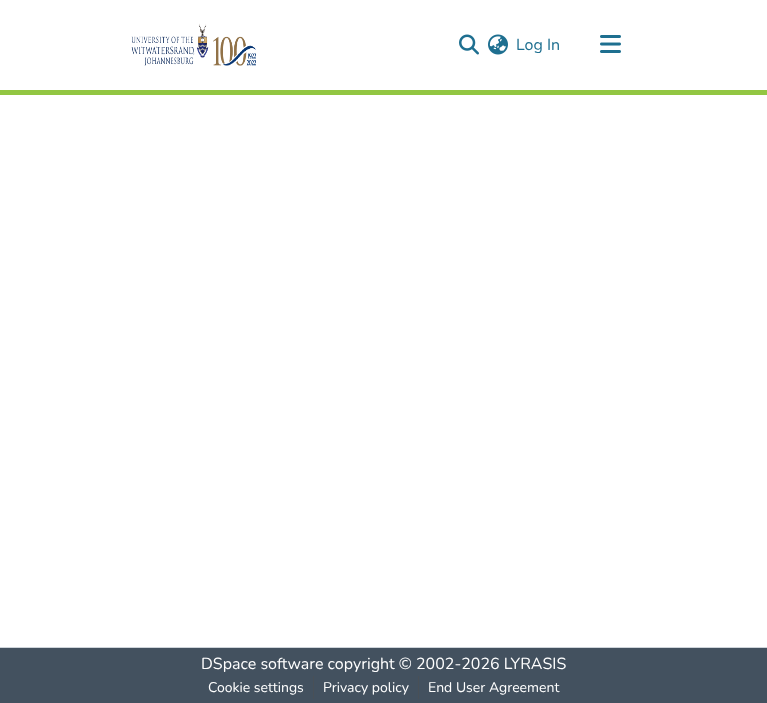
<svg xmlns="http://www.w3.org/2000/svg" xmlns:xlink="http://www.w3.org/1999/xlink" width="767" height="703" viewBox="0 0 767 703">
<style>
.cls-1{font:16px Nunito;fill:#1e6f90}
.cls-2{font:16px Nunito;fill:#ffffff}
.cls-3{font:14px Nunito;fill:#ffffff}
</style>
<rect width="100%" height="100%" fill="#ffffff"/>
<rect fill="#92c642" x="0" y="90" width="767" height="5"/>
<image xlink:href="image0.png" x="131" y="23" width="125" height="43"/>
<image xlink:href="image1.png" x="459" y="34" width="20" height="21"/>
<image xlink:href="image2.png" x="488" y="34" width="20" height="21"/>
<image xlink:href="image3.png" x="600" y="35" width="21" height="18"/>
<rect fill="#43515f" x="0" y="648" width="767" height="55"/>
<rect fill="#ced4da" x="0" y="647" width="767" height="1"/>
<rect fill="#495057" x="313" y="676" width="1" height="23"/>
<rect fill="#495057" x="418" y="676" width="1" height="23"/>
<text class="cls-1" x="516" y="50">Log In</text>
<text class="cls-2" x="201" y="669">DSpace software copyright © 2002-2026 LYRASIS</text>
<text class="cls-3" x="208" y="692">Cookie settings</text>
<text class="cls-3" x="323" y="692">Privacy policy</text>
<text class="cls-3" x="428" y="692">End User Agreement</text>
</svg>
